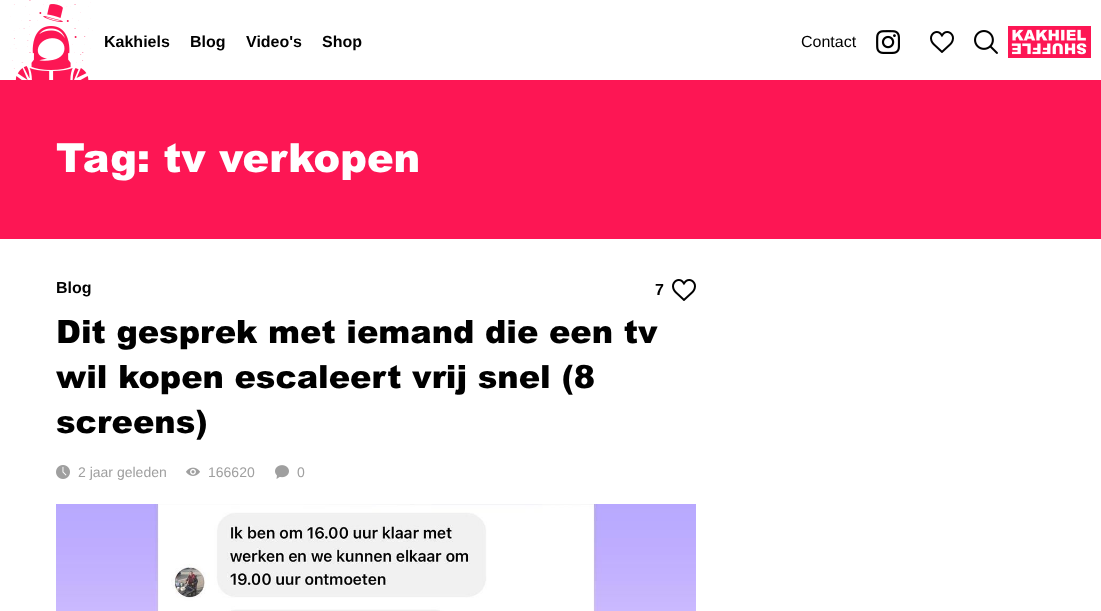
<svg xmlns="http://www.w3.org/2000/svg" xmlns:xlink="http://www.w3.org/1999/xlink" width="1101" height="611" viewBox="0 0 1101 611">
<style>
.cls-1{font:bold 16px Liberation Sans;fill:#000000}
.cls-2{font:16px Liberation Sans;fill:#000000}
.cls-3{font:900 40px Arial;fill:#ffffff}
.cls-4{font:900 32px Arial;fill:#000000}
.cls-5{font:14px Liberation Sans;fill:#9f9f9f}
</style>
<rect width="100%" height="100%" fill="#ffffff"/>
<image xlink:href="image0.png" x="10" y="0" width="83" height="80"/>
<image xlink:href="image1.png" x="876" y="30" width="24" height="24"/>
<image xlink:href="image2.png" x="930" y="31" width="24" height="22"/>
<image xlink:href="image3.png" x="974" y="30" width="24" height="24"/>
<rect fill="#fd1654" x="1008" y="26" width="83" height="32"/>
<image xlink:href="image4.png" x="1011" y="29" width="76" height="26"/>
<rect fill="#fd1654" x="0" y="80" width="1101" height="159"/>
<image xlink:href="image2.png" x="672" y="279" width="24" height="22"/>
<image xlink:href="image5.png" x="56" y="465" width="14" height="14"/>
<image xlink:href="image6.png" x="186" y="467" width="14" height="9"/>
<image xlink:href="image7.png" x="275" y="465" width="14" height="14"/>
<image xlink:href="image8.png" x="56" y="504" width="640" height="107"/>
<text class="cls-1" x="104" y="47">Kakhiels</text>
<text class="cls-1" x="190" y="47">Blog</text>
<text class="cls-1" x="246" y="47">Video's</text>
<text class="cls-1" x="322" y="47">Shop</text>
<text class="cls-2" x="801" y="47">Contact</text>
<text class="cls-3" x="56" y="172">Tag: tv verkopen</text>
<text class="cls-1" x="56" y="293">Blog</text>
<text class="cls-1" x="655" y="295">7</text>
<text class="cls-4"><tspan x="56" y="343">Dit gesprek met iemand die een tv</tspan><tspan x="56" y="388">wil kopen escaleert vrij snel (8</tspan><tspan x="56" y="433">screens)</tspan></text>
<text class="cls-5" x="78" y="477">2 jaar geleden</text>
<text class="cls-5" x="208" y="477">166620</text>
<text class="cls-5" x="297" y="477">0</text>
</svg>
